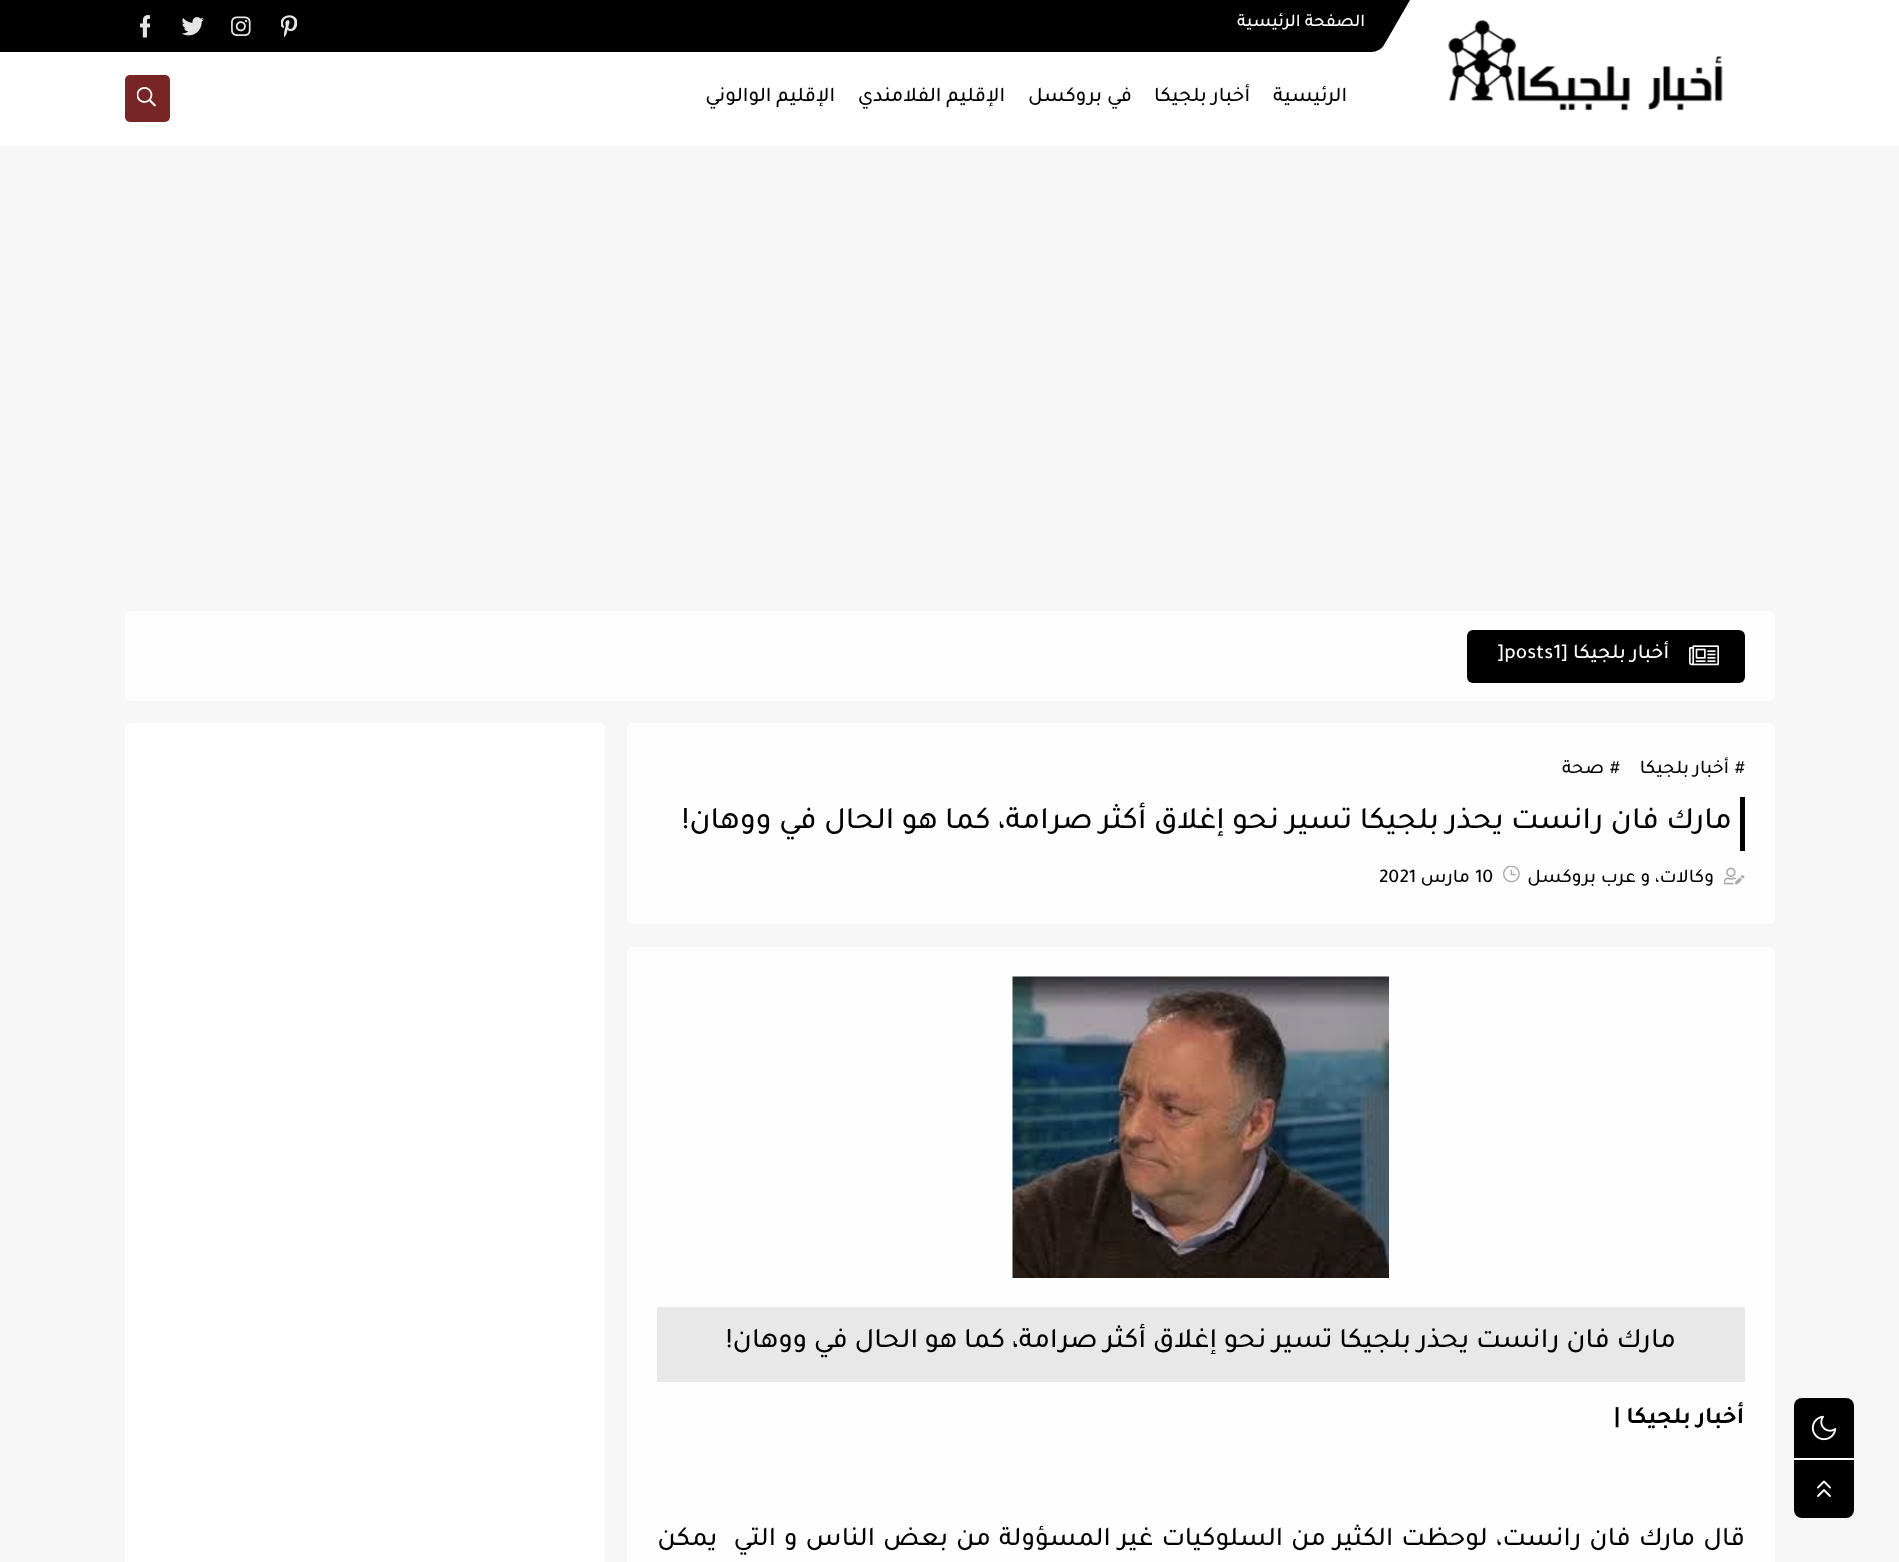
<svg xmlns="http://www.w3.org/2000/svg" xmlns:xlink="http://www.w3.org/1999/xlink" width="1899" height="1562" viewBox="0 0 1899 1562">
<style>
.cls-1{font:500 18px Tajawal;direction:rtl;fill:#ffffff}
.cls-2{font:500 21px Tajawal;direction:rtl;fill:#000000}
.cls-3{font:500 21px Tajawal;direction:rtl;fill:#ffffff}
.cls-4{font:500 21px Tajawal;fill:#ffffff}
.cls-5{font:500 19.5px Tajawal;fill:#000000}
.cls-6{font:500 19.5px Tajawal;direction:rtl;fill:#000000}
.cls-7{font:500 31.5px Tajawal;direction:rtl;fill:#000000}
.cls-8{font:500 28.5px Tajawal;direction:rtl;fill:#000000}
.cls-9{font:bold 24px Tajawal;direction:rtl;fill:#000000}
.cls-10{font:500 27px Tajawal;direction:rtl;fill:#000000}
</style>
<rect width="100%" height="100%" fill="#f7f7f7"/>
<rect fill="#ffffff" x="0" y="0" width="1899" height="146"/>
<path fill="#000000" d="M-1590 0H1410L1384 45C1382 49 1376 52 1372 52H-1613C-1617 52-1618 49-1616 45Z"/>
<image xlink:href="image0.png" x="281" y="15" width="16" height="23"/>
<image xlink:href="image1.png" x="231" y="16" width="20" height="20"/>
<image xlink:href="image2.png" x="182" y="17" width="22" height="19"/>
<image xlink:href="image3.png" x="140" y="15" width="10" height="23"/>
<image xlink:href="image4.png" x="1447" y="19" width="276" height="92"/>
<rect fill="#782525" x="125" y="75" width="45" height="47" rx="5"/>
<image xlink:href="image5.png" x="137" y="87" width="19" height="20"/>
<rect fill="#000000" x="1794" y="1398" width="60" height="120" rx="8"/>
<image xlink:href="image6.png" x="1811" y="1415" width="26" height="26"/>
<rect fill="#ffffff" x="1794" y="1458" width="60" height="2"/>
<path fill="none" stroke="#ffffff" stroke-width="1.8" stroke-linecap="round" stroke-linejoin="round" d="M1830 1487.5L1824 1481.5L1818 1487.5M1830 1496L1824 1490L1818 1496"/>
<rect fill="#fefefe" x="125" y="611" width="1650" height="90" rx="5"/>
<rect fill="#000000" x="1467" y="630" width="278" height="53" rx="6"/>
<image xlink:href="image7.png" x="1689" y="645" width="30" height="21"/>
<rect fill="#fefefe" x="627" y="723" width="1148" height="201" rx="5"/>
<rect fill="#000000" x="1740" y="797" width="5" height="54"/>
<image xlink:href="image8.png" x="1724" y="867" width="21" height="18"/>
<image xlink:href="image9.png" x="1503" y="866" width="17" height="17"/>
<rect fill="#fefefe" x="627" y="947" width="1148" height="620" rx="5"/>
<image xlink:href="image10.png" x="1012" y="976" width="377" height="302"/>
<rect fill="#e8e8e8" x="657" y="1307" width="1088" height="75"/>
<rect fill="#ffffff" x="125" y="723" width="480" height="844" rx="5"/>
<text class="cls-1" x="1365" y="26">الصفحة الرئيسية</text>
<text class="cls-2" x="1347" y="101">الرئيسية</text>
<text class="cls-2" x="1250" y="101">أخبار بلجيكا</text>
<text class="cls-2" x="1132" y="101">في بروكسل</text>
<text class="cls-2" x="1005" y="101">الإقليم الفلامندي</text>
<text class="cls-2" x="835" y="101">الإقليم الوالوني</text>
<text class="cls-3" x="1669" y="658">أخبار بلجيكا [</text>
<text class="cls-4" x="1497" y="658">]posts1</text>
<text class="cls-5" x="1735" y="773">#</text>
<text class="cls-6" x="1729" y="773">أخبار بلجيكا</text>
<text class="cls-5" x="1610" y="773">#</text>
<text class="cls-6" x="1604" y="773">صحة</text>
<text class="cls-7" x="1732" y="828">مارك فان رانست يحذر بلجيكا تسير نحو إغلاق أكثر صرامة، كما هو الحال في ووهان!</text>
<text class="cls-6" x="1714" y="882">وكالات، و عرب بروكسل</text>
<text class="cls-5" x="1475" y="882">10</text>
<text class="cls-6" x="1470" y="882">مارس</text>
<text class="cls-5" x="1379" y="882">2021</text>
<text class="cls-8" x="1676" y="1347">مارك فان رانست يحذر بلجيكا تسير نحو إغلاق أكثر صرامة، كما هو الحال في ووهان!</text>
<text class="cls-9" x="1744" y="1423">أخبار بلجيكا |</text>
<text class="cls-10" xml:space="preserve" x="1745" y="1545" word-spacing="1.75">قال مارك فان رانست، لوحظت الكثير من السلوكيات غير المسؤولة من بعض الناس و التي  يمكن</text>
</svg>
